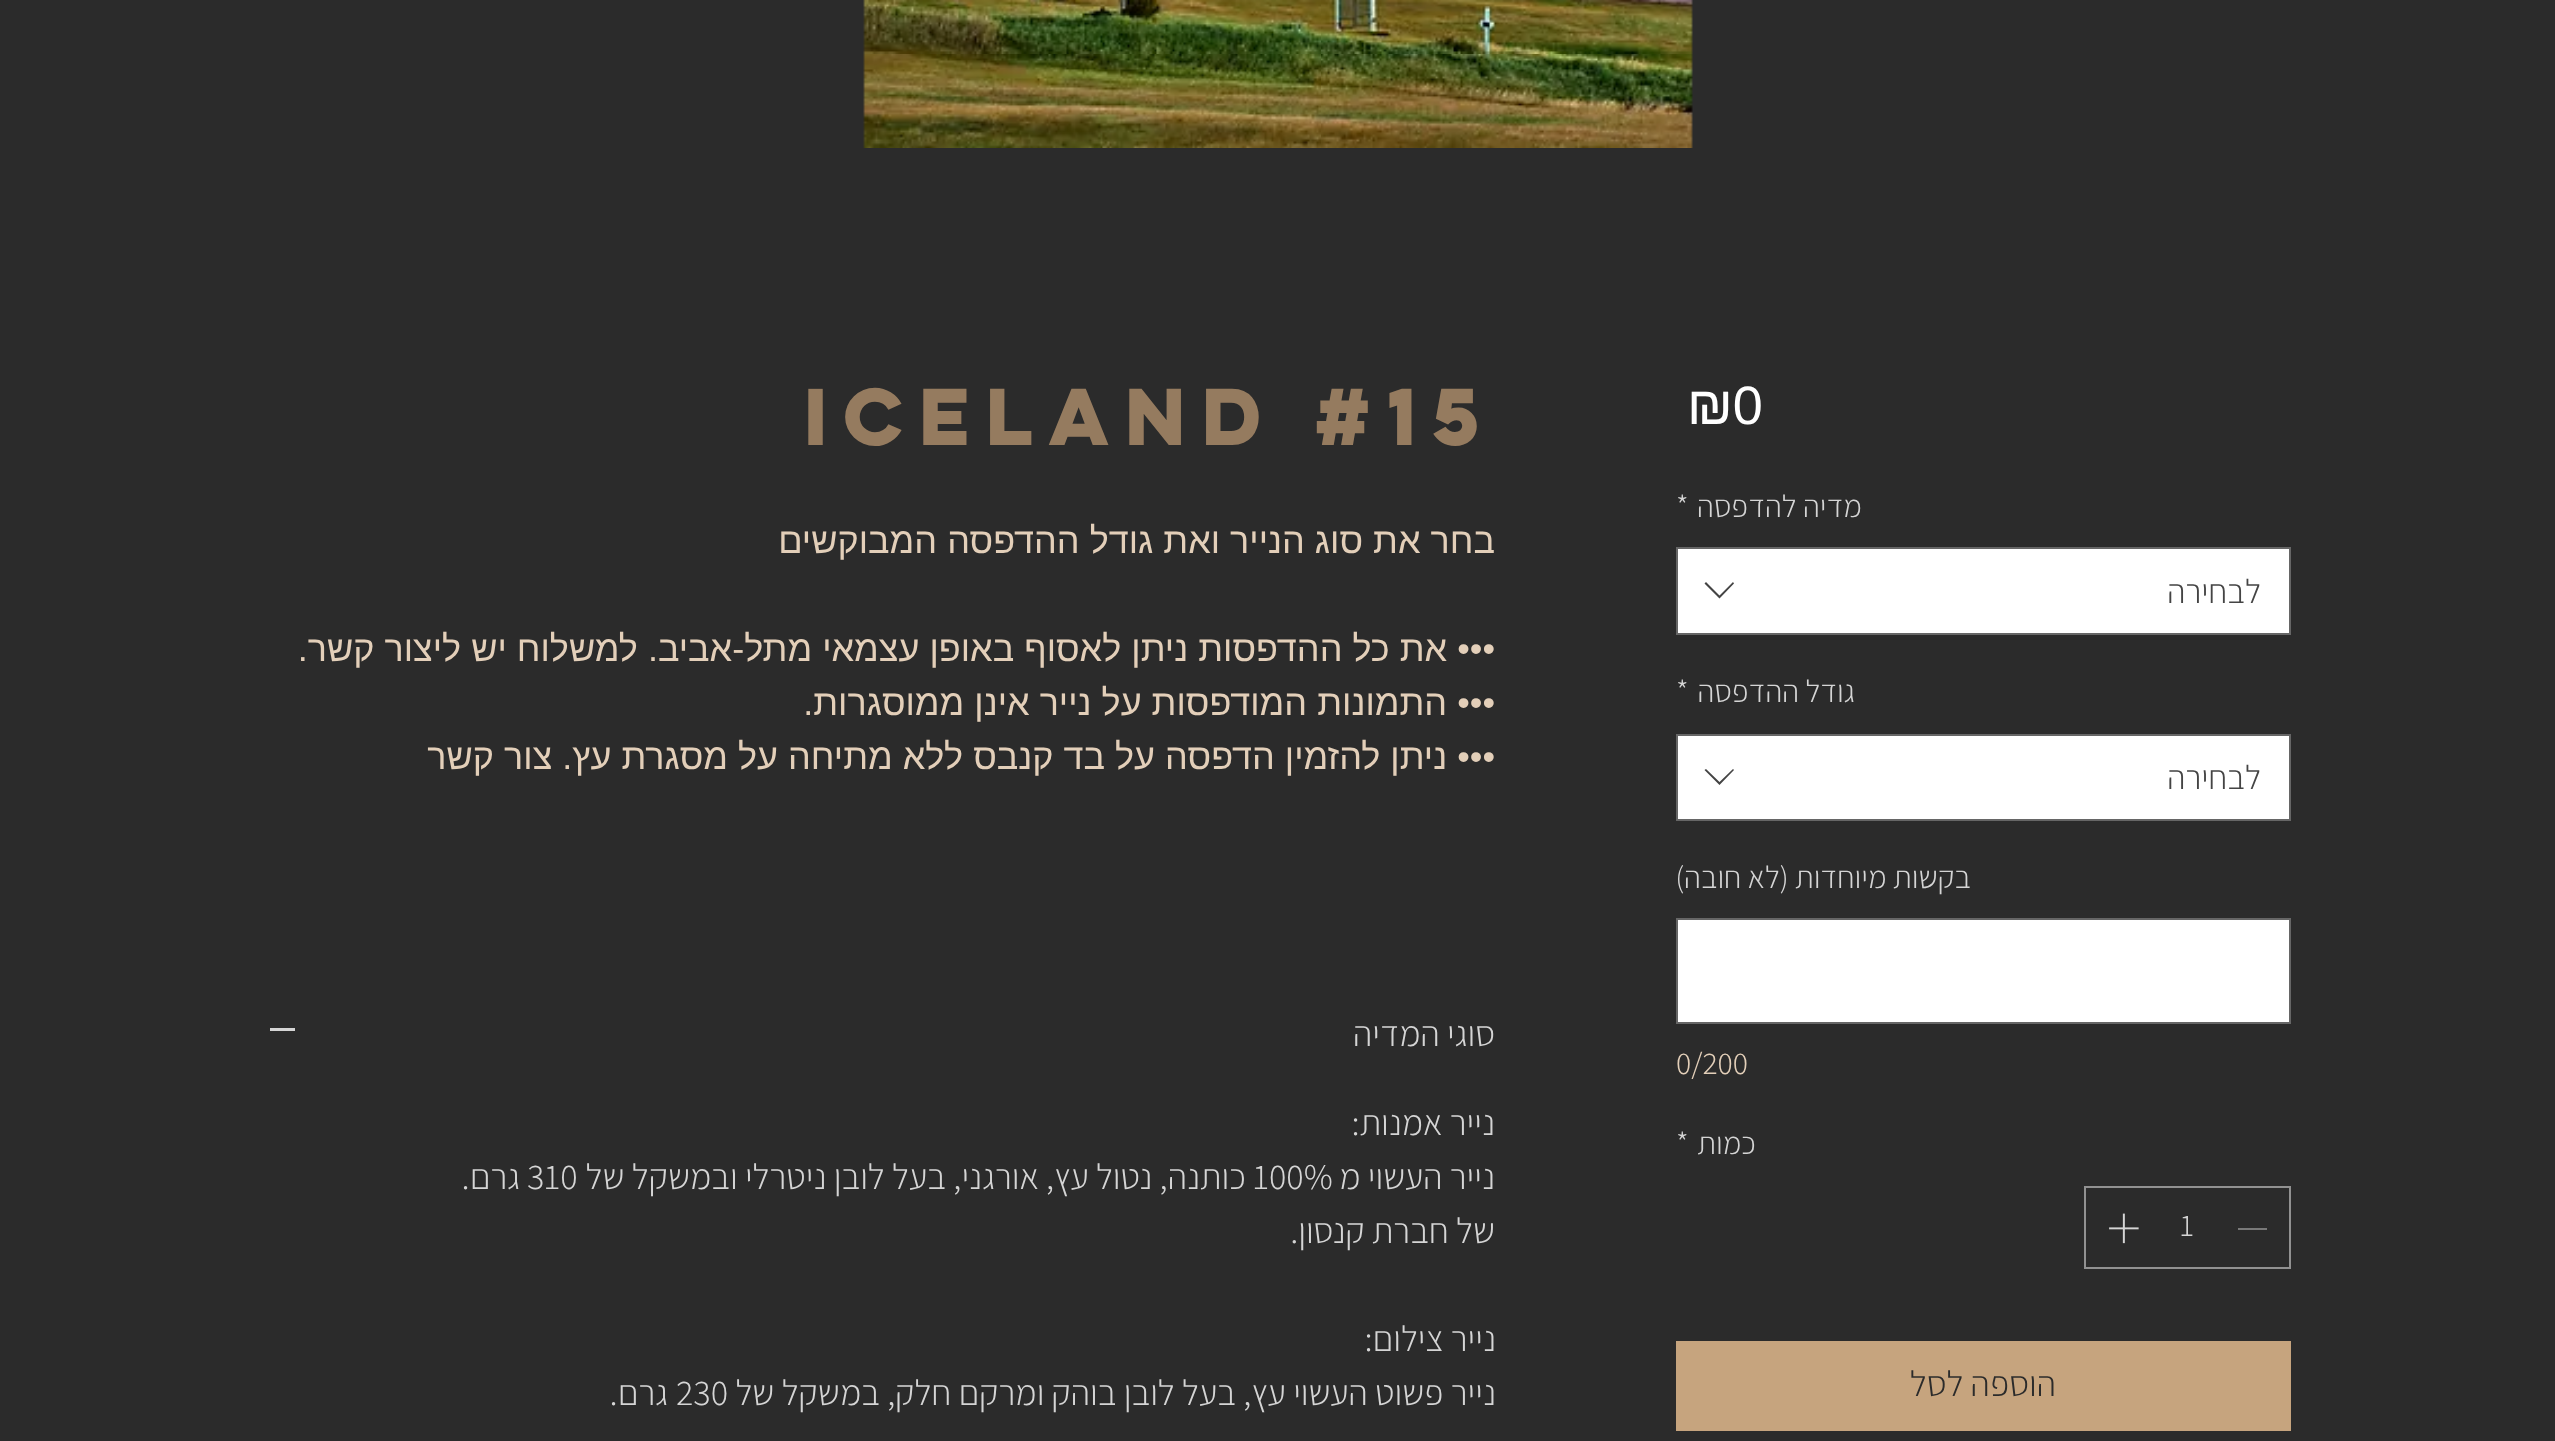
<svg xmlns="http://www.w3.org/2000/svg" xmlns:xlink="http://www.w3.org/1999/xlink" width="2555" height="1441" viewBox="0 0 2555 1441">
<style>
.cls-1{font:54px Liberation Sans;fill:#ffffff}
.cls-2{font:300 31.5px Assistant;direction:rtl;fill:#d5d5d5}
.cls-3{font:300 31.5px Assistant;fill:#d5d5d5}
.cls-4{font:300 34px Assistant;direction:rtl;fill:#444444}
.cls-5{font:300 31.5px Assistant;fill:#e3cfb9}
.cls-6{font:300 36px Assistant;direction:rtl;fill:#2b2b2b}
.cls-7{font:bold 72px 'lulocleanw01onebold';fill:#957b5f}
.cls-8{font:36px Liberation Sans;direction:rtl;fill:#e3cfb9}
.cls-9{font:300 36px Assistant;direction:rtl;fill:#d5d5d5}
.cls-10{font:300 36px Assistant;fill:#d5d5d5}
</style>
<rect width="100%" height="100%" fill="#2b2b2b"/>
<image xlink:href="image0.png" x="863" y="0" width="830" height="148"/>
<rect fill="#ffffff" stroke="#666666" stroke-width="2" x="1677" y="548" width="613" height="86"/>
<path fill="#444444" fill-rule="evenodd" d="M1733 582L1734 583.5L1719.5 598.5L1704.5 583.5L1706 582L1719.5 595.5Z"/>
<rect fill="#ffffff" stroke="#666666" stroke-width="2" x="1677" y="735" width="613" height="85"/>
<path fill="#444444" fill-rule="evenodd" d="M1733 769L1734 770L1719.5 785L1704.5 770L1706 769L1719.5 782Z"/>
<rect fill="#ffffff" stroke="#666666" stroke-width="2" x="1677" y="919" width="613" height="104"/>
<rect fill="none" stroke="#919191" stroke-width="2" x="2085" y="1187" width="205" height="81"/>
<rect fill="#797979" x="2238" y="1228" width="29" height="2"/>
<image xlink:href="image1.png" x="2109" y="1213" width="30" height="31"/>
<rect fill="#c6a47e" x="1676" y="1341" width="615" height="90"/>
<rect fill="#d5d5d5" x="270" y="1028" width="25" height="3"/>
<text class="cls-1" x="1687" y="424">₪0</text>
<text class="cls-2" x="1862" y="517">מדיה להדפסה</text>
<text class="cls-3" x="1676" y="517">*</text>
<text class="cls-4" x="2261" y="603">לבחירה</text>
<text class="cls-2" x="1855" y="702">גודל ההדפסה</text>
<text class="cls-3" x="1676" y="702">*</text>
<text class="cls-4" x="2261" y="789">לבחירה</text>
<text class="cls-2" x="1971" y="888">בקשות מיוחדות (לא חובה)</text>
<text class="cls-5" x="1676" y="1074">0/200</text>
<text class="cls-2" x="1756" y="1154">כמות</text>
<text class="cls-3" x="1676" y="1154">*</text>
<text class="cls-3" x="2180" y="1236">1</text>
<text class="cls-6" x="2056" y="1396">הוספה לסל</text>
<text class="cls-7" x="804" y="445">Iceland #15</text>
<text class="cls-8" x="1495" y="553">בחר את סוג הנייר ואת גודל ההדפסה המבוקשים</text>
<text class="cls-8"><tspan x="1495" y="661">••• את כל ההדפסות ניתן לאסוף באופן עצמאי מתל-אביב. למשלוח יש ליצור קשר.</tspan><tspan x="1495" y="715">••• התמונות המודפסות על נייר אינן ממוסגרות.</tspan><tspan x="1495" y="769">••• ניתן להזמין הדפסה על בד קנבס ללא מתיחה על מסגרת עץ. צור קשר</tspan></text>
<text class="cls-9" x="1495" y="1046">סוגי המדיה</text>
<text class="cls-9"><tspan x="1495" y="1135">נייר אמנות:</tspan><tspan x="1495" y="1189">נייר העשוי מ</tspan></text>
<text class="cls-10" x="1253" y="1189">100%</text>
<text class="cls-9" x="1246" y="1189">כותנה, נטול עץ, אורגני, בעל לובן ניטרלי ובמשקל של</text>
<text class="cls-10" x="527" y="1189">310</text>
<text class="cls-9" x="520" y="1189">גרם.</text>
<text class="cls-9" x="1495" y="1243">של חברת קנסון.</text>
<text class="cls-9"><tspan x="1496" y="1351">נייר צילום:</tspan><tspan x="1496" y="1405">נייר פשוט העשוי עץ, בעל לובן בוהק ומרקם חלק, במשקל של</tspan></text>
<text class="cls-10" x="676" y="1405">230</text>
<text class="cls-9" x="668" y="1405">גרם.</text>
</svg>
